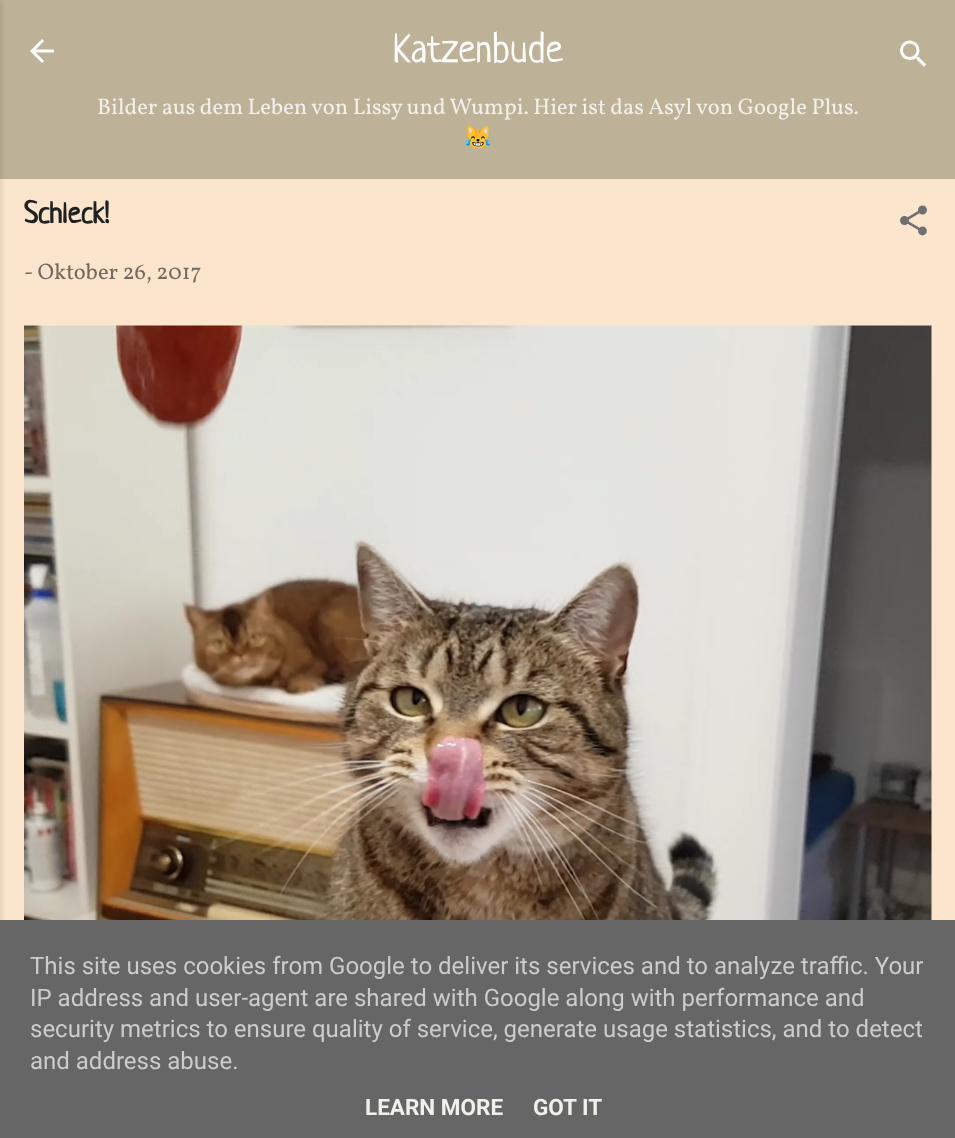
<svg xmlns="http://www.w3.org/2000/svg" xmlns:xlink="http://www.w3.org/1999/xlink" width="955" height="1138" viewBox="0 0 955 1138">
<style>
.cls-1{font:40px Neucha;fill:#ffffff}
.cls-2{font:22.5px Vollkorn;fill:#f2f0ea}
.cls-3{font:22.5px Noto Color Emoji;fill:#f2f0ea}
.cls-4{font:bold 30px Neucha;fill:#212121}
.cls-5{font:22.5px Vollkorn;fill:#74695e}
.cls-6{font:24px Roboto;fill:#cccccc}
.cls-7{font:bold 22.5px Roboto;fill:#f2f0ea}
</style>
<rect width="100%" height="100%" fill="#bdb298"/>
<rect fill="#fce5cd" x="0" y="179" width="955" height="741"/>
<rect fill="#000000" fill-opacity="0.1" filter="blur(2px)" x="-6" y="2" width="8" height="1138"/>
<image xlink:href="image0.png" x="30" y="39" width="24" height="24"/>
<image xlink:href="image1.png" x="900" y="40" width="27" height="27"/>
<image xlink:href="image2.png" x="900" y="205" width="27" height="31"/>
<image xlink:href="image3.png" x="24" y="325" width="908" height="595"/>
<rect fill="#666666" x="0" y="920" width="955" height="218"/>
<text class="cls-1" x="393" y="62">Katzenbude</text>
<text class="cls-2" x="97" y="114">Bilder aus dem Leben von Lissy und Wumpi. Hier ist das Asyl von Google Plus.</text>
<text class="cls-3" x="464" y="145">😹</text>
<text class="cls-4" x="24" y="223">Schleck!</text>
<text class="cls-5" x="24" y="279">- Oktober 26, 2017</text>
<text class="cls-6"><tspan x="30" y="974">This site uses cookies from Google to deliver its services and to analyze traffic. Your</tspan><tspan x="30" y="1006">IP address and user-agent are shared with Google along with performance and</tspan><tspan x="30" y="1037">security metrics to ensure quality of service, generate usage statistics, and to detect</tspan><tspan x="30" y="1069">and address abuse.</tspan></text>
<text class="cls-7" x="365" y="1115">LEARN MORE</text>
<text class="cls-7" x="533" y="1115">GOT IT</text>
</svg>
